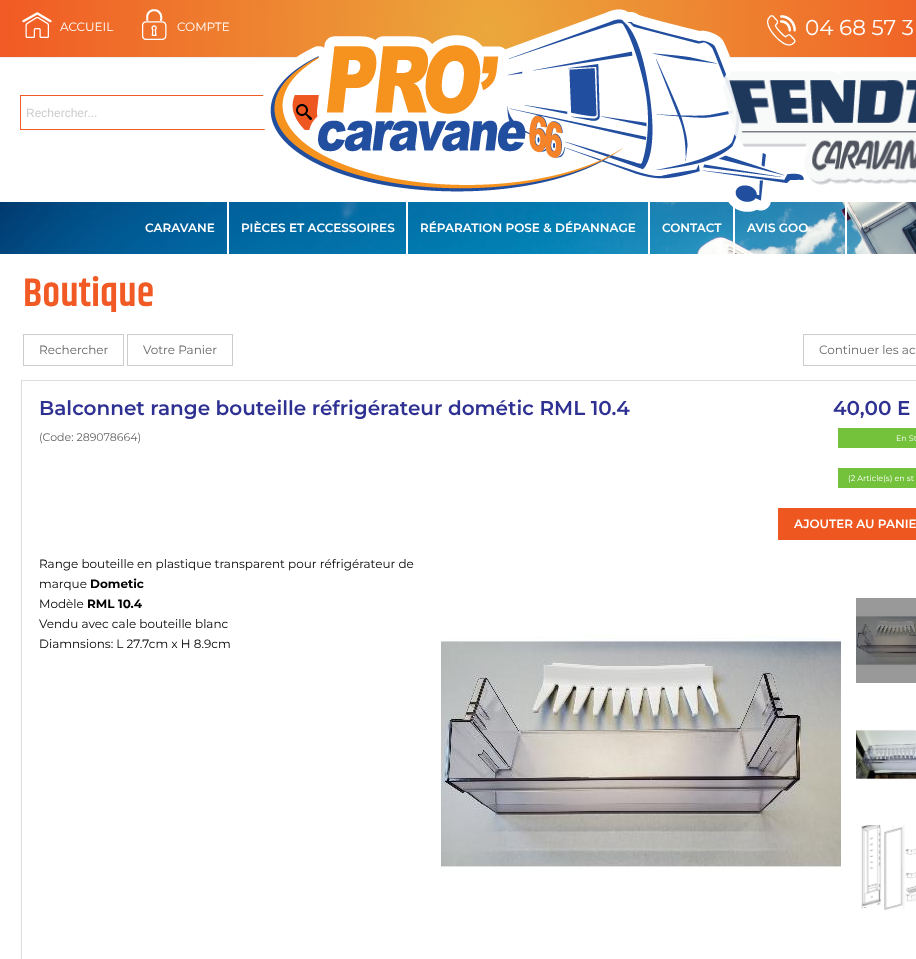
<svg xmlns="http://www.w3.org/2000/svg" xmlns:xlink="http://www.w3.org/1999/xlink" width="916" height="959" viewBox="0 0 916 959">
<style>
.cls-1{font:12px Montserrat;fill:#ffffff}
.cls-2{font:12px Liberation Sans;fill:#cccccc}
.cls-3{font:21.5px Montserrat;fill:#ffffff}
.cls-4{font:600 12px Montserrat;fill:#ffffff}
.cls-5{font:600 40px Khand;fill:#f15a24}
.cls-6{font:12px Montserrat;fill:#666666}
.cls-7{font:600 20px Montserrat;fill:#2e3192}
.cls-8{font:11px Montserrat;fill:#666666}
.cls-9{font:8px Montserrat;fill:#ffffff}
.cls-10{font:12px Montserrat;fill:#000000}
.cls-11{font:bold 12px Montserrat;fill:#000000}
</style>
<defs>
<radialGradient id="g1" gradientUnits="userSpaceOnUse" cx="490" cy="29" r="491"><stop offset="0" stop-color="#eba83c"/><stop offset="1" stop-color="#f15a24"/></radialGradient>
</defs>
<rect width="100%" height="100%" fill="#ffffff"/>
<rect fill="url(#g1)" x="0" y="0" width="916" height="57"/>
<rect fill="#eeeeee" x="0" y="57" width="916" height="1"/>
<image xlink:href="image0.png" x="22" y="12" width="30" height="26"/>
<image xlink:href="image1.png" x="142" y="9" width="25" height="31"/>
<rect fill="none" stroke="#f15a24" x="20.5" y="95.5" width="299" height="34"/>
<rect fill="#ef5720" x="292" y="96" width="27" height="33"/>
<image xlink:href="image2.png" x="296" y="104" width="16" height="16"/>
<image xlink:href="image4.png" x="767" y="15" width="29" height="31"/>
<image xlink:href="image6.png" x="0" y="202" width="916" height="52"/>
<rect fill="#ffffff" x="406" y="202" width="2" height="52"/>
<rect fill="#ffffff" x="648" y="202" width="2" height="52"/>
<rect fill="#ffffff" x="733" y="202" width="2" height="52"/>
<image xlink:href="image3.png" x="263" y="9" width="541" height="203"/>
<image xlink:href="image5.png" x="723" y="71" width="193" height="114"/>
<rect fill="#ffffff" x="227" y="202" width="2" height="52"/>
<rect fill="#ffffff" x="845" y="202" width="2" height="52"/>
<rect fill="none" stroke="#cccccc" x="23.5" y="334.5" width="100" height="31"/>
<rect fill="none" stroke="#cccccc" x="127.5" y="334.5" width="105" height="31"/>
<rect fill="none" stroke="#cccccc" x="803.5" y="334.5" width="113" height="31"/>
<rect fill="none" stroke="#dddddd" x="21.5" y="380.5" width="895" height="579"/>
<rect fill="#74c13b" x="838" y="428" width="78" height="20"/>
<rect fill="#74c13b" x="838" y="468" width="78" height="20"/>
<rect fill="#ef5720" x="778" y="508" width="138" height="32"/>
<image xlink:href="image7.png" x="441" y="634" width="400" height="236"/>
<image xlink:href="image8.png" x="856" y="598" width="60" height="85"/>
<image xlink:href="image9.png" x="856" y="729" width="60" height="53"/>
<image xlink:href="image10.png" x="861" y="825" width="55" height="85"/>
<text class="cls-1" x="60" y="31">ACCUEIL</text>
<text class="cls-1" x="177" y="31">COMPTE</text>
<text class="cls-2" x="26" y="117">Rechercher...</text>
<text class="cls-3" x="805" y="35">04 68 57 3</text>
<text class="cls-4" x="145" y="232">CARAVANE</text>
<text class="cls-4" x="241" y="232">PIÈCES ET ACCESSOIRES</text>
<text class="cls-4" x="420" y="232">RÉPARATION POSE &amp; DÉPANNAGE</text>
<text class="cls-4" x="662" y="232">CONTACT</text>
<text class="cls-4" x="747" y="232">AVIS GOO</text>
<text class="cls-5" x="23" y="306">Boutique</text>
<text class="cls-6" x="39" y="354">Rechercher</text>
<text class="cls-6" x="143" y="354">Votre Panier</text>
<text class="cls-6" x="819" y="354">Continuer les ac</text>
<text class="cls-7" x="39" y="415">Balconnet range bouteille réfrigérateur dométic RML 10.4</text>
<text class="cls-8" x="39" y="441">(Code: 289078664)</text>
<text class="cls-7" x="833" y="415">40,00 E</text>
<text class="cls-9" x="896" y="441">En St</text>
<text class="cls-9" x="848" y="481">(2 Article(s) en st</text>
<text class="cls-4" x="794" y="528">AJOUTER AU PANIE</text>
<text class="cls-10"><tspan x="39" y="568">Range bouteille en plastique transparent pour réfrigérateur de</tspan><tspan x="39" y="588">marque</tspan></text>
<text class="cls-11" x="90" y="588">Dometic</text>
<text class="cls-10" x="39" y="608">Modèle</text>
<text class="cls-11" x="87" y="608">RML 10.4</text>
<text class="cls-10"><tspan x="39" y="628">Vendu avec cale bouteille blanc</tspan><tspan x="39" y="648">Diamnsions: L 27.7cm x H 8.9cm</tspan></text>
</svg>
